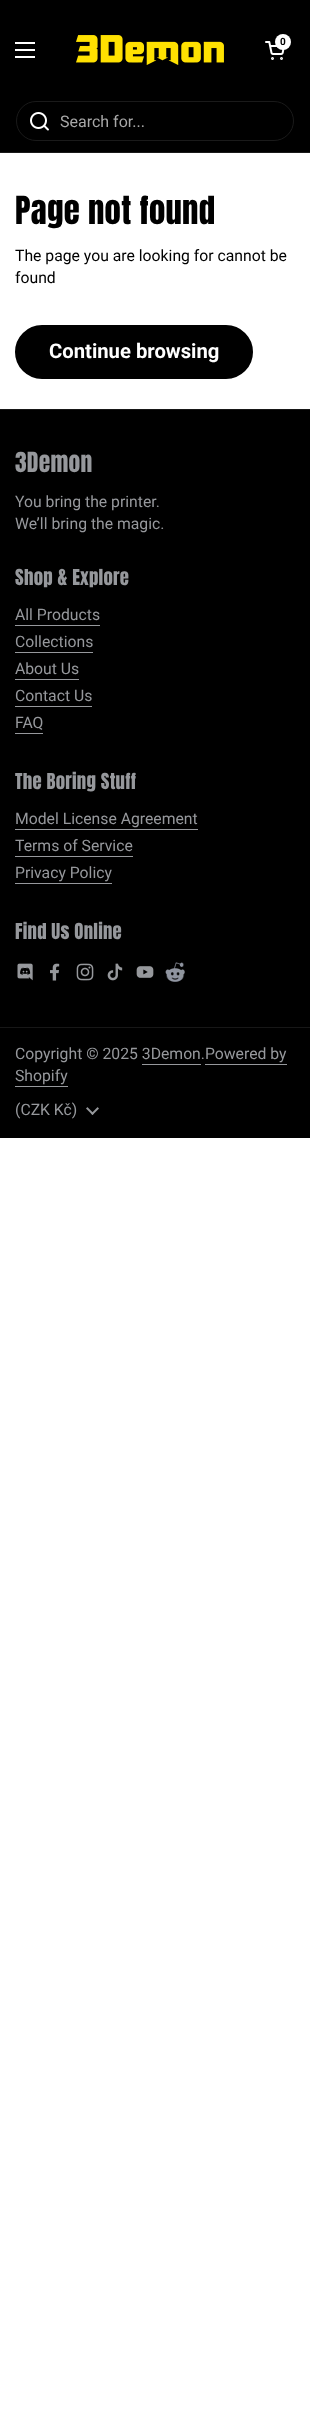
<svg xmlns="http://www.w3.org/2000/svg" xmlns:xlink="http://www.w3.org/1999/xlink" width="310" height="2409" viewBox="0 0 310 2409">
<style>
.cls-1{font:bold 10px Roboto;fill:#000000}
.cls-2{font:16px Roboto;fill:#a8a8a8}
.cls-3{font:32.75px Anton;letter-spacing:0.3px;fill:#000000}
.cls-4{font:15.75px Roboto;fill:#000000}
.cls-5{font:bold 20.25px Roboto;fill:#ffffff}
.cls-6{font:23.5px Anton;letter-spacing:0.25px;fill:#96989c}
.cls-7{font:15.75px Roboto;fill:#96989c}
.cls-8{font:18.75px Anton;letter-spacing:0.25px;fill:#96989c}
</style>
<rect width="100%" height="100%" fill="#ffffff"/>
<rect fill="#000000" x="0" y="0" width="310" height="152"/>
<rect fill="#ffffff" x="15" y="42" width="20" height="2"/>
<rect fill="#ffffff" x="15" y="49" width="20" height="2"/>
<rect fill="#ffffff" x="15" y="56" width="20" height="2"/>
<image xlink:href="image0.png" x="76" y="35" width="148" height="30"/>
<image xlink:href="image1.png" x="265" y="41" width="20" height="19"/>
<circle fill="#ffffff" cx="283" cy="42" r="8"/>
<rect fill="#1a1a1a" x="0" y="152" width="310" height="1"/>
<rect fill="none" stroke="#1a1a1a" x="16.5" y="101.5" width="277" height="39" rx="19.5"/>
<image xlink:href="image2.png" x="30" y="112" width="19" height="19"/>
<rect fill="#000000" stroke="#000000" stroke-width="2" x="16" y="326" width="236" height="52" rx="26"/>
<rect fill="#000000" x="0" y="410" width="310" height="728"/>
<rect fill="#171717" x="0" y="409" width="310" height="1"/>
<rect fill="#96989c" x="15" y="625" width="85" height="1"/>
<rect fill="#96989c" x="15" y="652" width="78" height="1"/>
<rect fill="#96989c" x="15" y="679" width="64" height="1"/>
<rect fill="#96989c" x="15" y="706" width="77" height="1"/>
<rect fill="#96989c" x="15" y="733" width="28" height="1"/>
<rect fill="#96989c" x="15" y="829" width="183" height="1"/>
<rect fill="#96989c" x="15" y="856" width="118" height="1"/>
<rect fill="#96989c" x="15" y="883" width="97" height="1"/>
<image xlink:href="image3.png" x="17" y="963" width="16" height="18"/>
<image xlink:href="image4.png" x="50" y="963" width="10" height="18"/>
<image xlink:href="image5.png" x="76" y="963" width="18" height="18"/>
<image xlink:href="image6.png" x="107" y="963" width="16" height="18"/>
<image xlink:href="image7.png" x="136" y="966" width="18" height="12"/>
<image xlink:href="image8.png" x="165" y="962" width="20" height="20"/>
<rect fill="#171717" x="0" y="1027" width="310" height="1"/>
<rect fill="#96989c" x="142" y="1064" width="59" height="1"/>
<rect fill="#96989c" x="205" y="1064" width="82" height="1"/>
<rect fill="#96989c" x="15" y="1086" width="53" height="1"/>
<image xlink:href="image9.png" x="86" y="1107" width="13" height="8"/>
<text class="cls-1" x="280" y="45">0</text>
<text class="cls-2" x="60" y="127">Search for...</text>
<text class="cls-3" x="15" y="224">Page not found</text>
<text class="cls-4"><tspan x="15" y="261">The page you are looking for cannot be</tspan><tspan x="15" y="283">found</tspan></text>
<text class="cls-5" x="49" y="358">Continue browsing</text>
<text class="cls-6" x="15" y="472">3Demon</text>
<text class="cls-7"><tspan x="15" y="507">You bring the printer.</tspan><tspan x="15" y="529">We’ll bring the magic.</tspan></text>
<text class="cls-8" x="15" y="585">Shop &amp; Explore</text>
<text class="cls-7"><tspan x="15" y="620">All Products</tspan><tspan x="15" y="647">Collections</tspan><tspan x="15" y="674">About Us</tspan><tspan x="15" y="701">Contact Us</tspan><tspan x="15" y="728">FAQ</tspan></text>
<text class="cls-8" x="15" y="789">The Boring Stuff</text>
<text class="cls-7"><tspan x="15" y="824">Model License Agreement</tspan><tspan x="15" y="851">Terms of Service</tspan><tspan x="15" y="878">Privacy Policy</tspan></text>
<text class="cls-8" x="15" y="939">Find Us Online</text>
<text class="cls-7"><tspan x="15" y="1059">Copyright © 2025 3Demon.Powered by</tspan><tspan x="15" y="1081">Shopify</tspan></text>
<text class="cls-7" x="15" y="1115">(CZK Kč)</text>
</svg>
